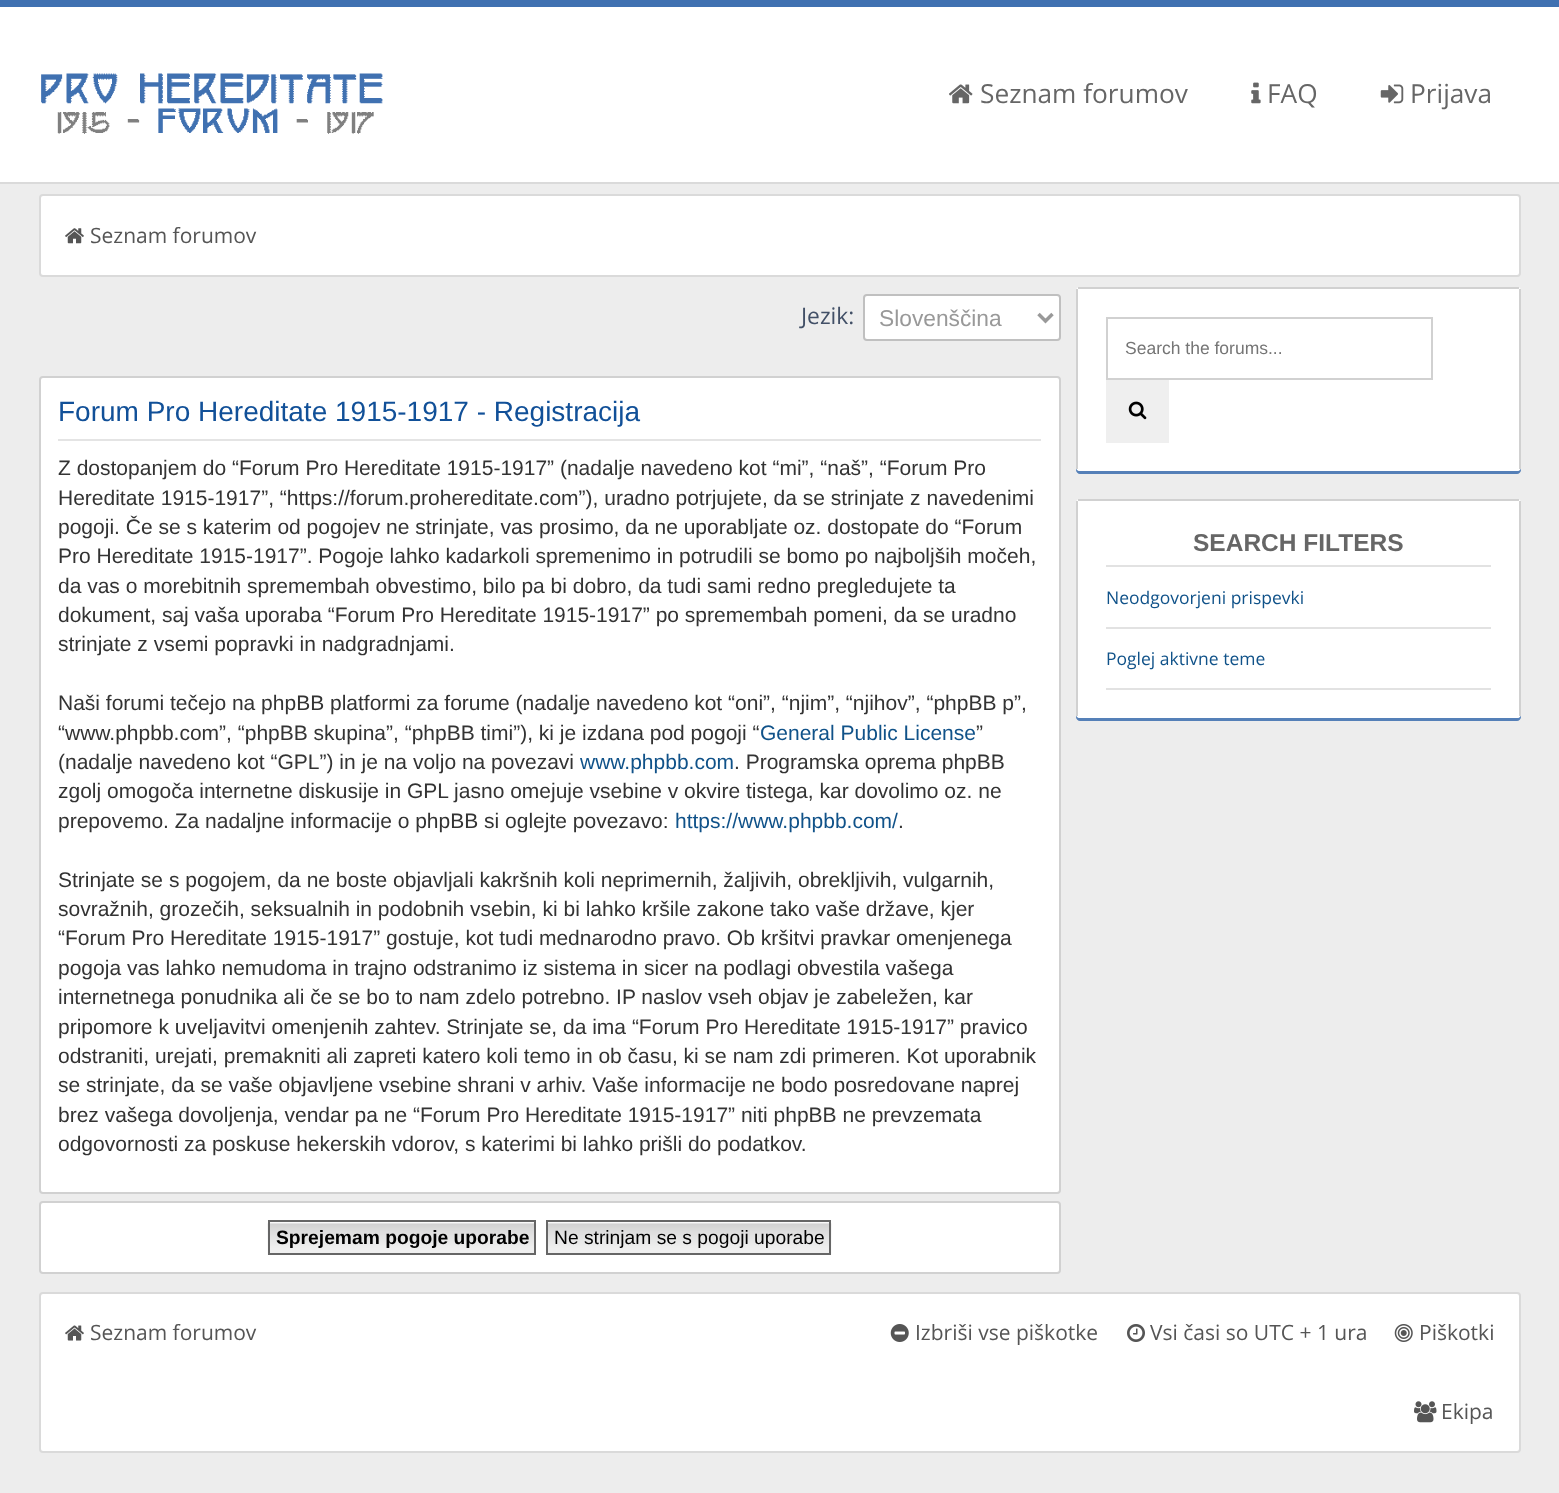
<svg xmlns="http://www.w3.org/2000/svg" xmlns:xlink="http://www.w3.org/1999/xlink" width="1559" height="1493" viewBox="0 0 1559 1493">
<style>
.cls-1{font:26.25px Open Sans;fill:#666666}
.cls-2{font:21px Open Sans;fill:#555555}
.cls-3{font:22.75px Open Sans;fill:#425067}
.cls-4{font:22.75px Liberation Sans;fill:#999999}
.cls-5{font:28px Liberation Sans;fill:#115098}
.cls-6{font:21px Liberation Sans;fill:#333333}
.cls-7{font:21px Liberation Sans;fill:#105289}
.cls-8{font:bold 19.25px Liberation Sans;fill:#000000}
.cls-9{font:19.25px Liberation Sans;fill:#000000}
.cls-10{font:17.5px Liberation Sans;fill:#757575}
.cls-11{font:bold 24.5px Liberation Sans;fill:#666666}
.cls-12{font:17.5px Open Sans;fill:#105289}
</style>
<rect width="100%" height="100%" fill="#ededed"/>
<rect fill="#ffffff" x="0" y="7" width="1559" height="175"/>
<rect fill="#4071b1" x="0" y="0" width="1559" height="7"/>
<rect fill="#dadada" x="0" y="182" width="1559" height="2"/>
<image xlink:href="image0.png" x="41" y="73" width="342" height="61"/>
<image xlink:href="image1.png" x="949" y="84" width="24" height="20"/>
<image xlink:href="image2.png" x="1251" y="82" width="10" height="22"/>
<image xlink:href="image3.png" x="1380" y="84" width="24" height="20"/>
<rect fill="#ffffff" stroke="#dadada" stroke-width="2" x="40" y="195" width="1480" height="81" rx="3"/>
<image xlink:href="image4.png" x="65" y="228" width="19" height="16"/>
<rect fill="#ffffff" stroke="#c0c0c0" stroke-width="2" x="864" y="295" width="196" height="45" rx="3"/>
<path fill="none" stroke="#999999" stroke-width="3.5" d="M1038.5 314L1045.5 321L1052.5 314"/>
<rect fill="#ffffff" stroke="#d1d1d1" stroke-width="2" x="40" y="377" width="1020" height="816" rx="3"/>
<rect fill="#e4e4e4" x="58" y="439" width="983" height="2"/>
<rect fill="#ffffff" stroke="#d1d1d1" stroke-width="2" x="40" y="1202" width="1020" height="71" rx="3"/>
<rect fill="#fafafa" x="270" y="1222" width="264" height="1"/>
<image xlink:href="image5.png" x="267" y="1223" width="267" height="32"/>
<rect fill="none" stroke="#666666" stroke-width="2" x="269" y="1221" width="266" height="33"/>
<rect fill="#fafafa" x="548" y="1222" width="281" height="1"/>
<image xlink:href="image6.png" x="548" y="1223" width="284" height="32"/>
<rect fill="none" stroke="#666666" stroke-width="2" x="547" y="1221" width="283" height="33"/>
<path fill="#5580b8" d="M1076 294V470C1076 472 1078 474 1080 474H1517C1519 474 1521 472 1521 470V294V467C1521 469 1519 471 1517 471H1080C1078 471 1076 469 1076 467Z"/>
<rect fill="#ffffff" x="1076" y="287" width="445" height="184" rx="4"/>
<rect fill="#d1d1d1" x="1078" y="287" width="441" height="2"/>
<rect fill="#d1d1d1" x="1519" y="289" width="2" height="180"/>
<rect fill="#d1d1d1" x="1076" y="289" width="2" height="180"/>
<rect fill="none" stroke="#d1d1d1" stroke-width="2" x="1107" y="318" width="325" height="61"/>
<rect fill="#efefef" x="1106" y="380" width="63" height="63"/>
<image xlink:href="image7.png" x="1128" y="401" width="19" height="19"/>
<path fill="#5580b8" d="M1076 505V717C1076 719 1078 721 1080 721H1517C1519 721 1521 719 1521 717V505V714C1521 716 1519 718 1517 718H1080C1078 718 1076 716 1076 714Z"/>
<rect fill="#ffffff" x="1076" y="499" width="445" height="219" rx="4"/>
<rect fill="#d1d1d1" x="1078" y="499" width="441" height="2"/>
<rect fill="#d1d1d1" x="1519" y="501" width="2" height="215"/>
<rect fill="#d1d1d1" x="1076" y="501" width="2" height="215"/>
<rect fill="#e2e2e2" x="1106" y="565" width="385" height="2"/>
<rect fill="#e2e2e2" x="1106" y="627" width="385" height="2"/>
<rect fill="#e2e2e2" x="1106" y="688" width="385" height="2"/>
<rect fill="#ffffff" stroke="#dadada" stroke-width="2" x="40" y="1293" width="1480" height="159" rx="3"/>
<image xlink:href="image8.png" x="65" y="1325" width="19" height="16"/>
<image xlink:href="image9.png" x="890" y="1324" width="19" height="18"/>
<image xlink:href="image10.png" x="1127" y="1324" width="18" height="18"/>
<image xlink:href="image11.png" x="1394" y="1324" width="19" height="18"/>
<image xlink:href="image12.png" x="1414" y="1401" width="23" height="22"/>
<text class="cls-1" x="980" y="103">Seznam forumov</text>
<text class="cls-1" x="1267" y="103">FAQ</text>
<text class="cls-1" x="1410" y="103">Prijava</text>
<text class="cls-2" x="90" y="243">Seznam forumov</text>
<text class="cls-3" x="801" y="324">Jezik:</text>
<text class="cls-4" x="879" y="326">Slovenščina</text>
<text class="cls-5" x="58" y="421">Forum Pro Hereditate 1915-1917 - Registracija</text>
<text class="cls-6"><tspan x="58" y="475">Z dostopanjem do “Forum Pro Hereditate 1915-1917” (nadalje navedeno kot “mi”, “naš”, “Forum Pro</tspan><tspan x="58" y="505">Hereditate 1915-1917”, “https://forum.prohereditate.com”), uradno potrjujete, da se strinjate z navedenimi</tspan><tspan x="58" y="534">pogoji. Če se s katerim od pogojev ne strinjate, vas prosimo, da ne uporabljate oz. dostopate do “Forum</tspan><tspan x="58" y="563">Pro Hereditate 1915-1917”. Pogoje lahko kadarkoli spremenimo in potrudili se bomo po najboljših močeh,</tspan><tspan x="58" y="593">da vas o morebitnih spremembah obvestimo, bilo pa bi dobro, da tudi sami redno pregledujete ta</tspan><tspan x="58" y="622">dokument, saj vaša uporaba “Forum Pro Hereditate 1915-1917” po spremembah pomeni, da se uradno</tspan><tspan x="58" y="651">strinjate z vsemi popravki in nadgradnjami.</tspan></text>
<text class="cls-6"><tspan x="58" y="710">Naši forumi tečejo na phpBB platformi za forume (nadalje navedeno kot “oni”, “njim”, “njihov”, “phpBB p”,</tspan><tspan x="58" y="740">“www.phpbb.com”, “phpBB skupina”, “phpBB timi”), ki je izdana pod pogoji “</tspan></text>
<text class="cls-7" x="760" y="740">General Public License</text>
<text class="cls-6" x="976" y="740">”</text>
<text class="cls-6" x="58" y="769">(nadalje navedeno kot “GPL”) in je na voljo na povezavi</text>
<text class="cls-7" x="580" y="769">www.phpbb.com</text>
<text class="cls-6" x="734" y="769">. Programska oprema phpBB</text>
<text class="cls-6"><tspan x="58" y="798">zgolj omogoča internetne diskusije in GPL jasno omejuje vsebine v okvire tistega, kar dovolimo oz. ne</tspan><tspan x="58" y="828">prepovemo. Za nadaljne informacije o phpBB si oglejte povezavo:</tspan></text>
<text class="cls-7" x="675" y="828">https://www.phpbb.com/</text>
<text class="cls-6" x="898" y="828">.</text>
<text class="cls-6"><tspan x="58" y="887">Strinjate se s pogojem, da ne boste objavljali kakršnih koli neprimernih, žaljivih, obrekljivih, vulgarnih,</tspan><tspan x="58" y="916">sovražnih, grozečih, seksualnih in podobnih vsebin, ki bi lahko kršile zakone tako vaše države, kjer</tspan><tspan x="58" y="945">“Forum Pro Hereditate 1915-1917” gostuje, kot tudi mednarodno pravo. Ob kršitvi pravkar omenjenega</tspan><tspan x="58" y="975">pogoja vas lahko nemudoma in trajno odstranimo iz sistema in sicer na podlagi obvestila vašega</tspan><tspan x="58" y="1004">internetnega ponudnika ali če se bo to nam zdelo potrebno. IP naslov vseh objav je zabeležen, kar</tspan><tspan x="58" y="1034">pripomore k uveljavitvi omenjenih zahtev. Strinjate se, da ima “Forum Pro Hereditate 1915-1917” pravico</tspan><tspan x="58" y="1063">odstraniti, urejati, premakniti ali zapreti katero koli temo in ob času, ki se nam zdi primeren. Kot uporabnik</tspan><tspan x="58" y="1092">se strinjate, da se vaše objavljene vsebine shrani v arhiv. Vaše informacije ne bodo posredovane naprej</tspan><tspan x="58" y="1122">brez vašega dovoljenja, vendar pa ne “Forum Pro Hereditate 1915-1917” niti phpBB ne prevzemata</tspan><tspan x="58" y="1151">odgovornosti za poskuse hekerskih vdorov, s katerimi bi lahko prišli do podatkov.</tspan></text>
<text class="cls-8" x="276" y="1244">Sprejemam pogoje uporabe</text>
<text class="cls-9" x="554" y="1244">Ne strinjam se s pogoji uporabe</text>
<text class="cls-10" x="1125" y="354">Search the forums...</text>
<text class="cls-11" x="1193" y="551">SEARCH FILTERS</text>
<text class="cls-12" x="1106" y="604">Neodgovorjeni prispevki</text>
<text class="cls-12" x="1106" y="665">Poglej aktivne teme</text>
<text class="cls-2" x="90" y="1340">Seznam forumov</text>
<text class="cls-2" x="915" y="1340">Izbriši vse piškotke</text>
<text class="cls-2" x="1150" y="1340">Vsi časi so UTC + 1 ura</text>
<text class="cls-2" x="1419" y="1340">Piškotki</text>
<text class="cls-2" x="1441" y="1419">Ekipa</text>
</svg>
